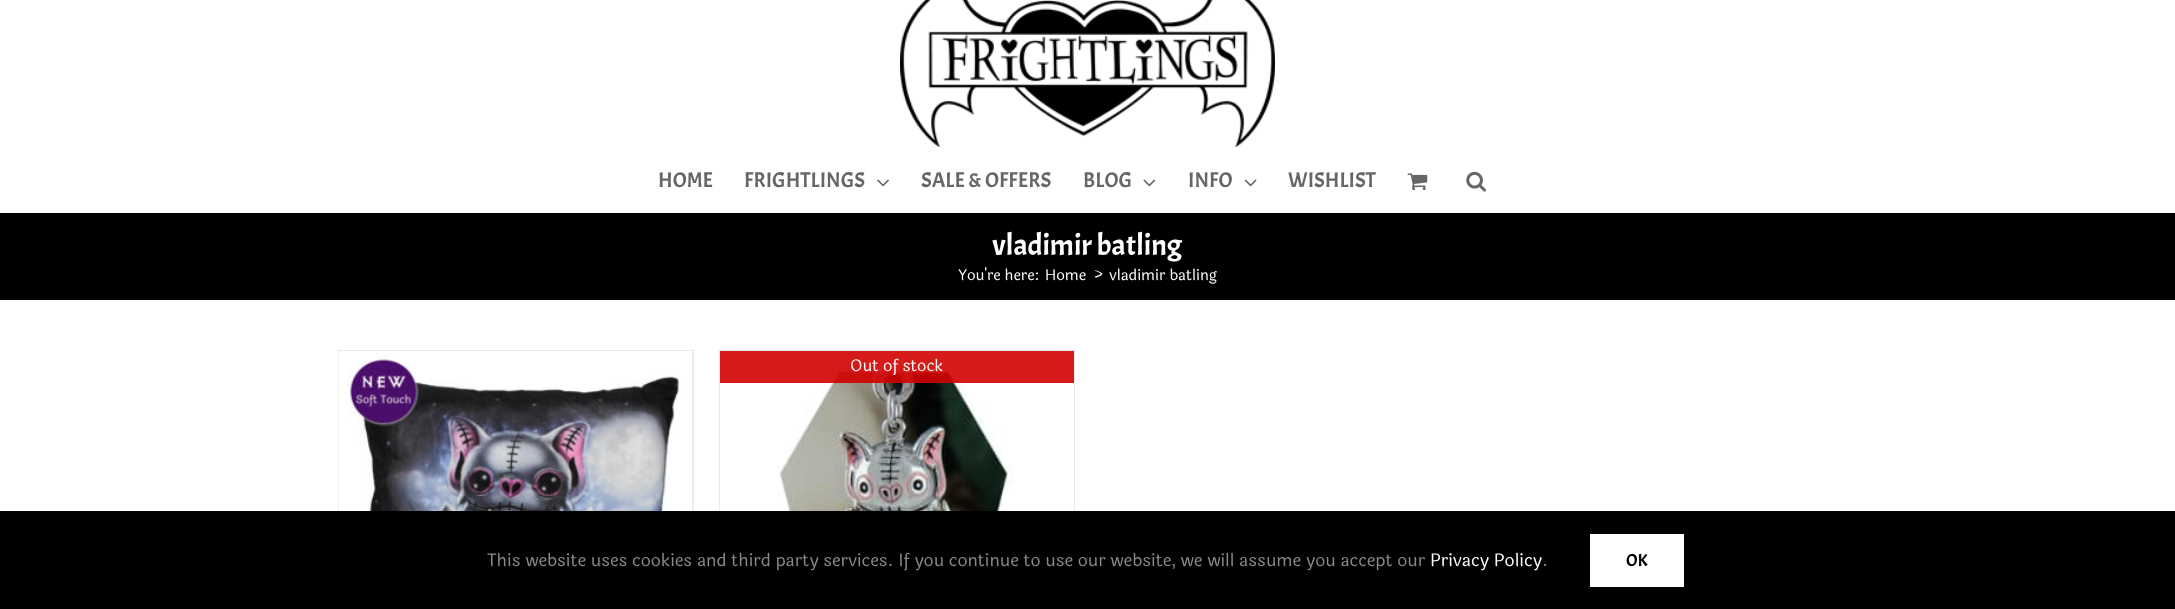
<svg xmlns="http://www.w3.org/2000/svg" xmlns:xlink="http://www.w3.org/1999/xlink" width="2175" height="609" viewBox="0 0 2175 609">
<style>
.cls-1{font:21.25px Acme;fill:#666666}
.cls-2{font:30px Acme;fill:#ffffff}
.cls-3{font:15px Laila;fill:#ffffff}
.cls-4{font:16.25px Laila;fill:#ffffff}
.cls-5{font:17.5px Laila;fill:#8c8989}
.cls-6{font:17.5px Laila;fill:#ffffff}
.cls-7{font:17.5px Acme;fill:#000000}
</style>
<rect width="100%" height="100%" fill="#ffffff"/>
<image xlink:href="image0.png" x="900" y="0" width="375" height="147"/>
<image xlink:href="image1.png" x="877" y="179" width="12" height="8"/>
<image xlink:href="image2.png" x="1143" y="179" width="13" height="8"/>
<image xlink:href="image3.png" x="1244" y="179" width="13" height="8"/>
<image xlink:href="image4.png" x="1407" y="173" width="21" height="18"/>
<image xlink:href="image5.png" x="1466" y="171" width="20" height="21"/>
<rect fill="#000000" x="0" y="213" width="2175" height="87"/>
<rect fill="#ebeaea" x="338" y="350" width="356" height="1"/>
<rect fill="#ebeaea" x="693" y="350" width="1" height="161"/>
<rect fill="#ebeaea" x="338" y="350" width="1" height="161"/>
<rect fill="#e0dede" x="692" y="351" width="1" height="160"/>
<image xlink:href="image6.png" x="338" y="351" width="355" height="160"/>
<rect fill="#ebeaea" x="719" y="350" width="356" height="1"/>
<rect fill="#ebeaea" x="1074" y="350" width="1" height="161"/>
<rect fill="#ebeaea" x="719" y="350" width="1" height="161"/>
<image xlink:href="image7.png" x="720" y="351" width="354" height="160"/>
<rect fill="#d20000" fill-opacity="0.9" x="720" y="351" width="354" height="32"/>
<rect fill="#000000" x="0" y="511" width="2175" height="98"/>
<rect fill="#ffffff" x="1590" y="534" width="94" height="53"/>
<text class="cls-1" x="658" y="187">HOME</text>
<text class="cls-1" x="744" y="187">FRIGHTLINGS</text>
<text class="cls-1" x="921" y="187">SALE &amp; OFFERS</text>
<text class="cls-1" x="1083" y="187">BLOG</text>
<text class="cls-1" x="1188" y="187">INFO</text>
<text class="cls-1" x="1288" y="187">WISHLIST</text>
<text class="cls-2" x="992" y="255">vladimir batling</text>
<text class="cls-3" x="958" y="280">You're here:</text>
<text class="cls-3" x="1045" y="280">Home</text>
<text class="cls-3" x="1093" y="280">&gt;</text>
<text class="cls-3" x="1109" y="280">vladimir batling</text>
<text class="cls-4" x="850" y="371">Out of stock</text>
<text class="cls-5" x="487" y="566">This website uses cookies and third party services. If you continue to use our website, we will assume you accept our</text>
<text class="cls-6" x="1430" y="566">Privacy Policy</text>
<text class="cls-5" x="1542" y="566">.</text>
<text class="cls-7" x="1626" y="566">OK</text>
</svg>
